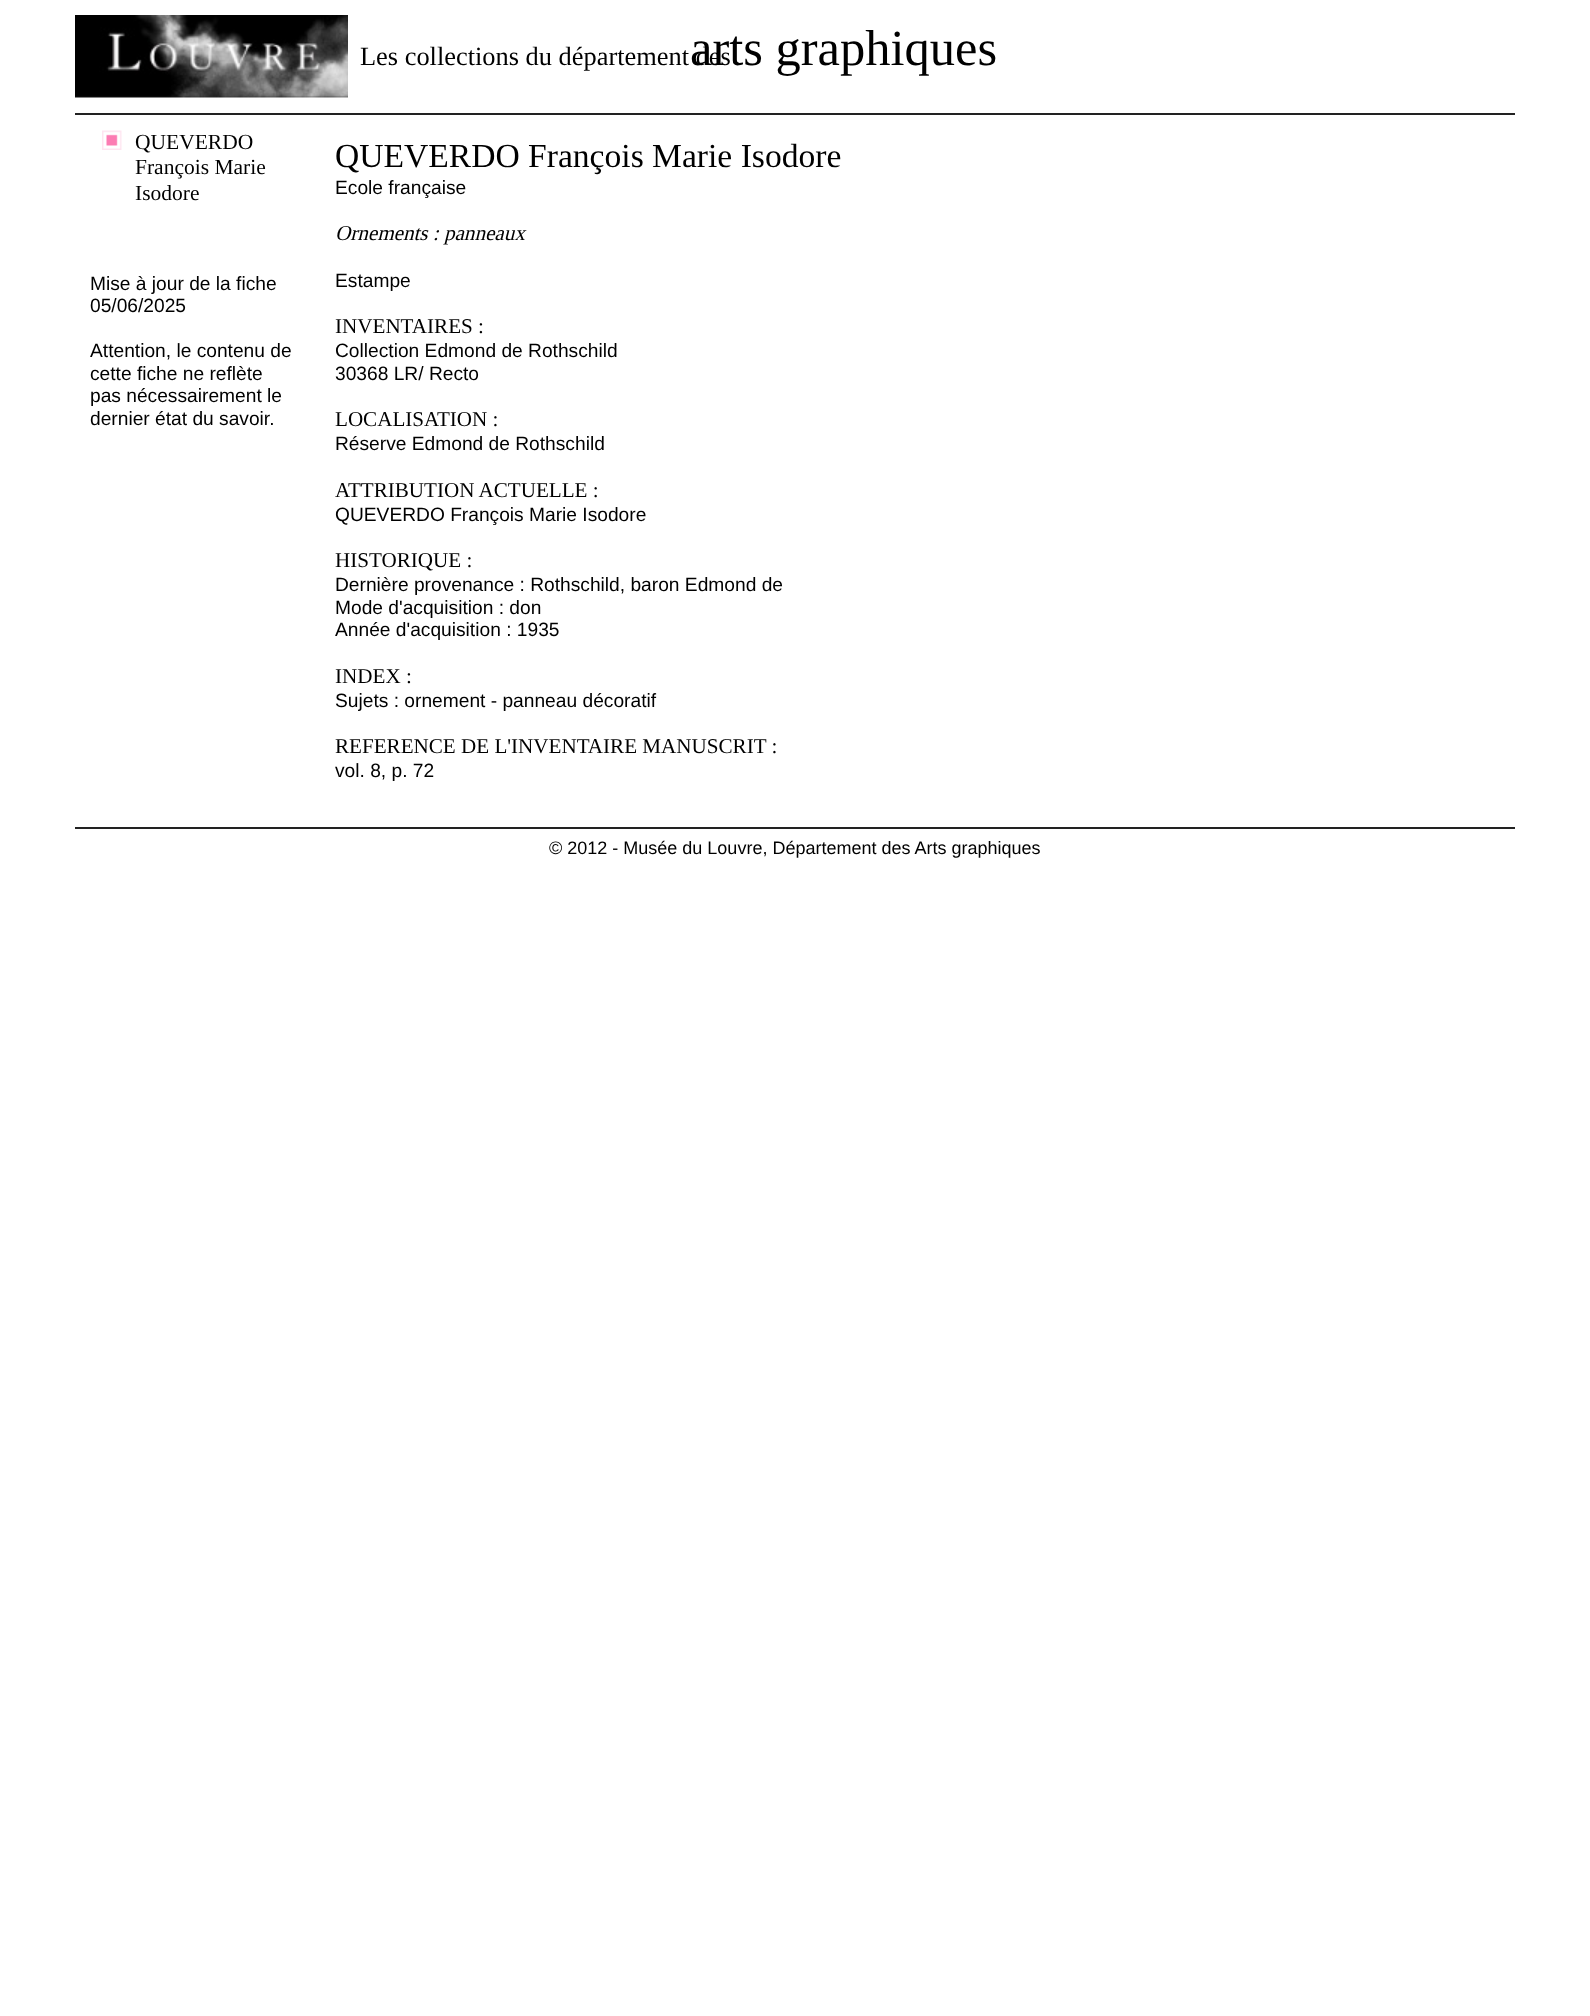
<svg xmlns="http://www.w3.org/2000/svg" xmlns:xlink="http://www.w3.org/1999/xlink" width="1590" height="2016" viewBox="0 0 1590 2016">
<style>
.cls-1{font:26.4px Tinos;fill:#000000}
.cls-2{font:50.5px Tinos;fill:#000000}
.cls-3{font:21.5px Tinos;fill:#000000}
.cls-4{font:19.2px Liberation Sans;fill:#000000}
.cls-5{font:33.6px Tinos;fill:#000000}
.cls-6{font:italic 21.1px Tinos;fill:#000000}
.cls-7{font:21.1px Tinos;fill:#000000}
.cls-8{font:18px Liberation Sans;fill:#000000}
</style>
<rect width="100%" height="100%" fill="#ffffff"/>
<rect fill="#222222" x="75" y="113" width="1440" height="2"/>
<image xlink:href="image0.png" x="75" y="15" width="273" height="83"/>
<image xlink:href="image1.png" x="102" y="130" width="20" height="20"/>
<rect fill="#222222" x="75" y="827" width="1440" height="2"/>
<text class="cls-1" x="360" y="65">Les collections du département des</text>
<text class="cls-2" x="690" y="65">arts graphiques</text>
<text class="cls-3"><tspan x="135" y="149">QUEVERDO</tspan><tspan x="135" y="174">François Marie</tspan><tspan x="135" y="200">Isodore</tspan></text>
<text class="cls-4"><tspan x="90" y="290">Mise à jour de la fiche</tspan><tspan x="90" y="312">05/06/2025</tspan></text>
<text class="cls-4"><tspan x="90" y="357">Attention, le contenu de</tspan><tspan x="90" y="380">cette fiche ne reflète</tspan><tspan x="90" y="402">pas nécessairement le</tspan><tspan x="90" y="425">dernier état du savoir.</tspan></text>
<text class="cls-5" x="335" y="167">QUEVERDO François Marie Isodore</text>
<text class="cls-4" x="335" y="194">Ecole française</text>
<text class="cls-6" x="335" y="240">Ornements : panneaux</text>
<text class="cls-4" x="335" y="287">Estampe</text>
<text class="cls-7" x="335" y="333">INVENTAIRES :</text>
<text class="cls-4"><tspan x="335" y="357">Collection Edmond de Rothschild</tspan><tspan x="335" y="380">30368 LR/ Recto</tspan></text>
<text class="cls-7" x="335" y="426">LOCALISATION :</text>
<text class="cls-4" x="335" y="450">Réserve Edmond de Rothschild</text>
<text class="cls-7" x="335" y="497">ATTRIBUTION ACTUELLE :</text>
<text class="cls-4" x="335" y="521">QUEVERDO François Marie Isodore</text>
<text class="cls-7" x="335" y="567">HISTORIQUE :</text>
<text class="cls-4"><tspan x="335" y="591">Dernière provenance : Rothschild, baron Edmond de</tspan><tspan x="335" y="614">Mode d'acquisition : don</tspan><tspan x="335" y="636">Année d'acquisition : 1935</tspan></text>
<text class="cls-7" x="335" y="683">INDEX :</text>
<text class="cls-4" x="335" y="707">Sujets : ornement - panneau décoratif</text>
<text class="cls-7" x="335" y="753">REFERENCE DE L'INVENTAIRE MANUSCRIT :</text>
<text class="cls-4" x="335" y="777">vol. 8, p. 72</text>
<text class="cls-8" x="549" y="854">© 2012 - Musée du Louvre, Département des Arts graphiques</text>
</svg>
